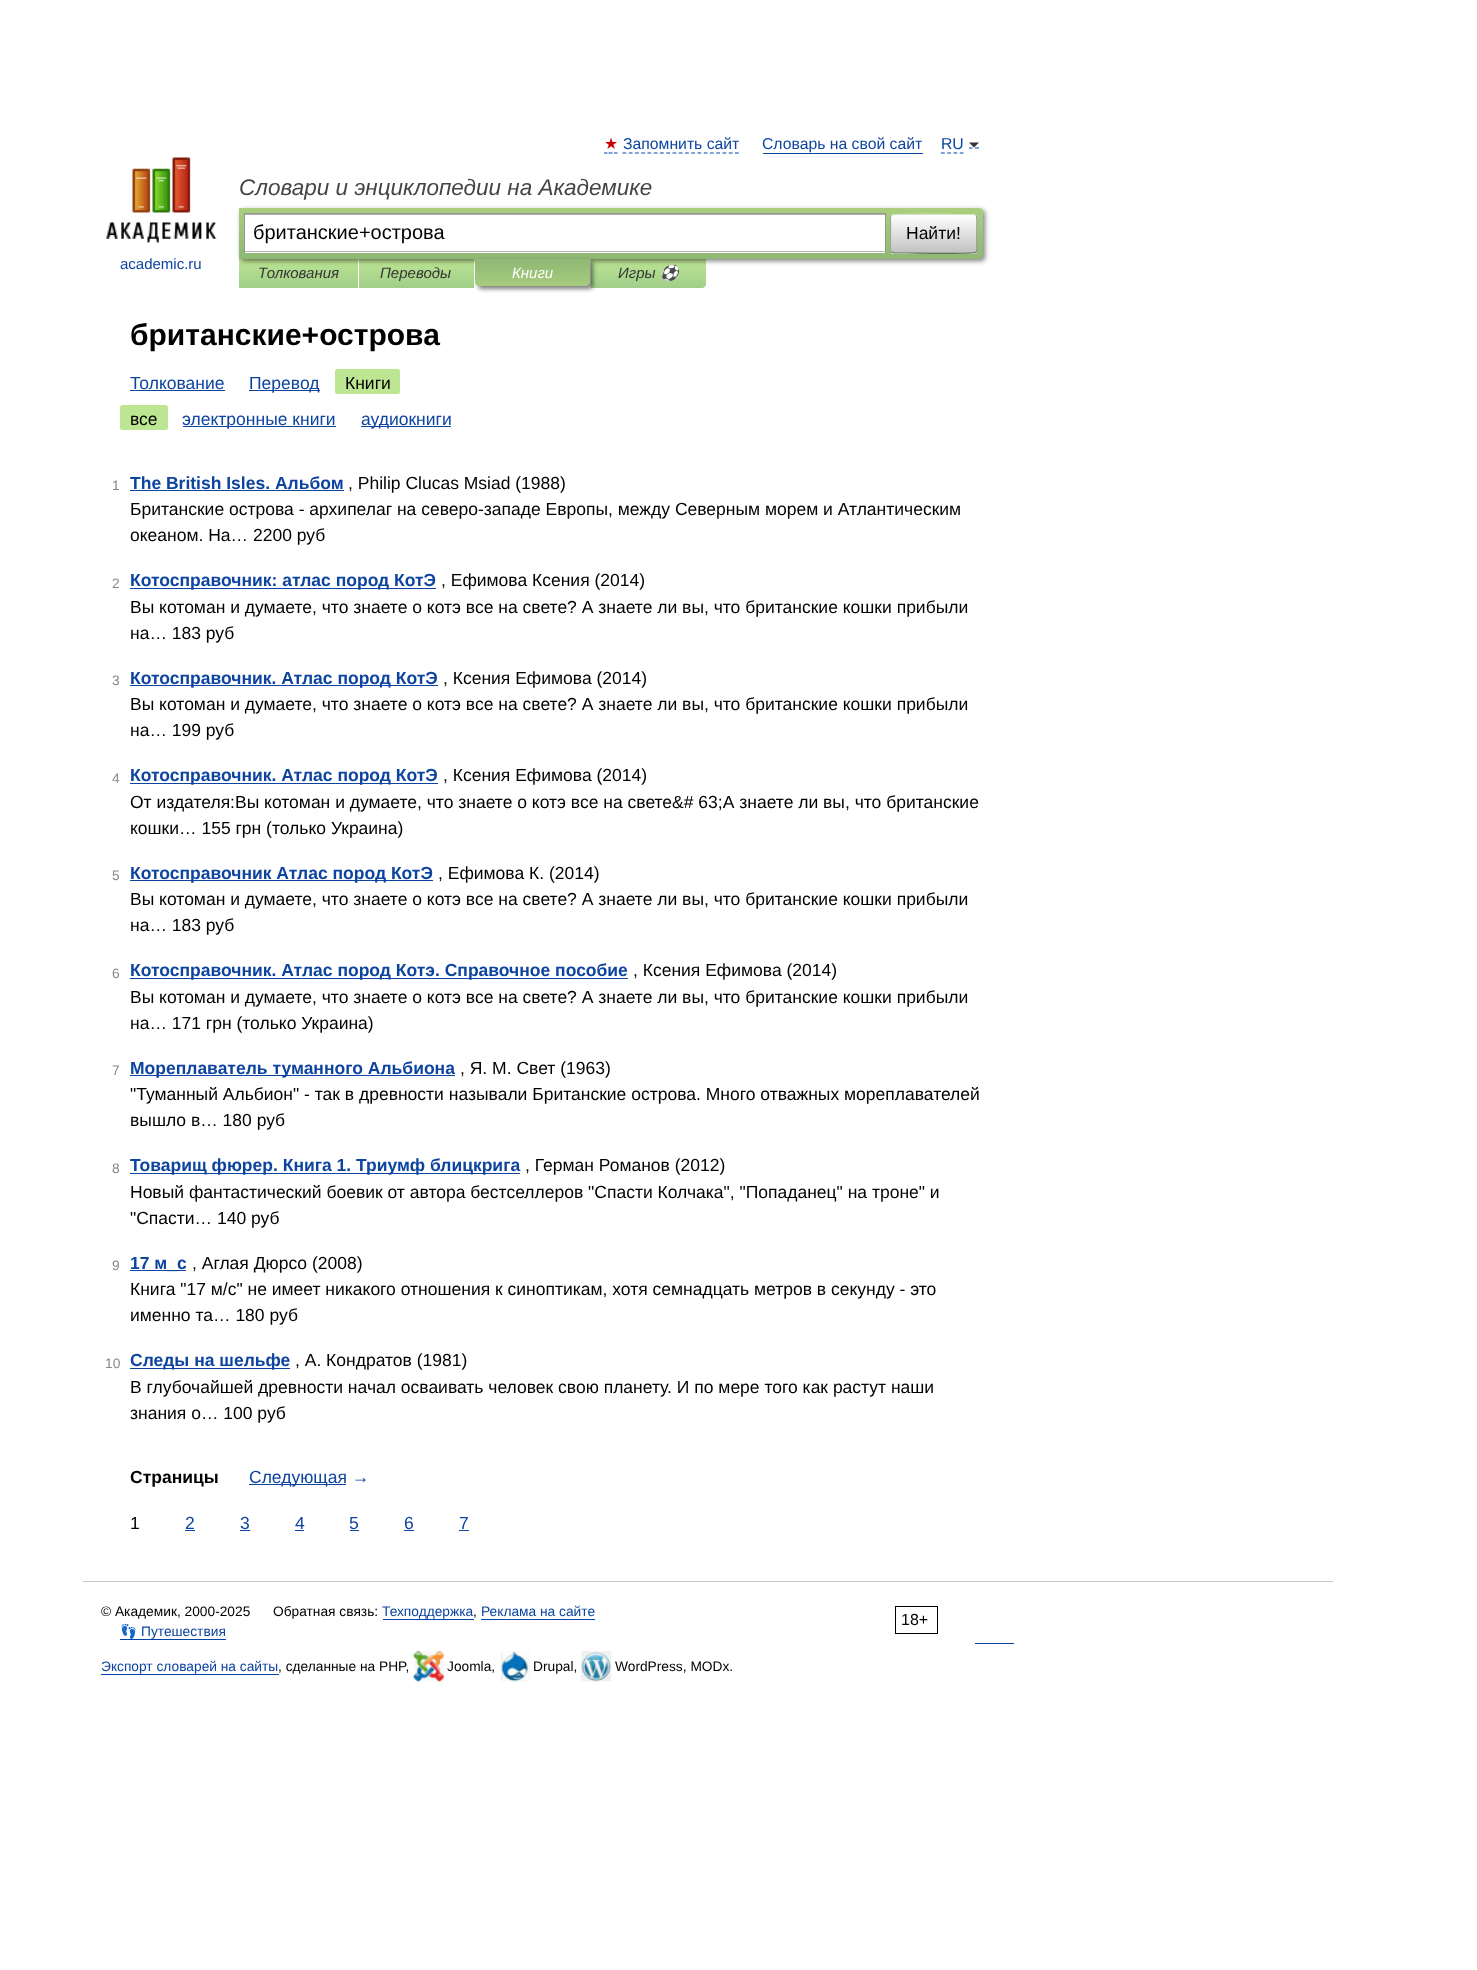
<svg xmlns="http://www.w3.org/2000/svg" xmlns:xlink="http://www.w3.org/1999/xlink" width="1477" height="1970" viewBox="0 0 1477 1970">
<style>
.cls-1{font:15.75px DejaVu Sans;fill:#cc0000}
.cls-2{font:15.75px Liberation Sans;fill:#0d44a0}
.cls-3{font:italic 22.5px Liberation Sans;fill:#454545}
.cls-4{font:20px Liberation Sans;fill:#000000}
.cls-5{font:17.5px Liberation Sans;fill:#000000}
.cls-6{font:15px Liberation Sans;fill:#0d44a0}
.cls-7{font:italic 15px Liberation Sans;fill:#353535}
.cls-8{font:italic 15px Liberation Sans;fill:#ffffff}
.cls-9{font:italic 15px Noto Color Emoji;fill:#353535}
.cls-10{font:bold 30px Liberation Sans;fill:#000000}
.cls-11{font:17.5px Liberation Sans;fill:#0d44a0}
.cls-12{font:13.75px Liberation Sans;fill:#898989}
.cls-13{font:bold 17.5px Liberation Sans;fill:#0d44a0}
.cls-14{font:bold 17.5px Liberation Sans;fill:#000000}
.cls-15{font:13.75px Liberation Sans;fill:#000000}
.cls-16{font:13.75px Liberation Sans;fill:#0d44a0}
.cls-17{font:16px Liberation Sans;fill:#000000}
.cls-18{font:13.75px Noto Color Emoji;fill:#0d44a0}
</style>
<defs>
<linearGradient id="g1" gradientUnits="userSpaceOnUse" x1="298" y1="259" x2="298" y2="288"><stop offset="0" stop-color="#bde693"/><stop offset="1" stop-color="#a0ce8a"/></linearGradient>
<linearGradient id="g2" gradientUnits="userSpaceOnUse" x1="416" y1="259" x2="416" y2="288"><stop offset="0" stop-color="#bde693"/><stop offset="1" stop-color="#a0ce8a"/></linearGradient>
<linearGradient id="g3" gradientUnits="userSpaceOnUse" x1="649" y1="259" x2="649" y2="288"><stop offset="0" stop-color="#bde693"/><stop offset="1" stop-color="#a0ce8a"/></linearGradient>
<linearGradient id="g4" gradientUnits="userSpaceOnUse" x1="611" y1="207" x2="611" y2="259"><stop offset="0" stop-color="#abcf7e"/><stop offset="1" stop-color="#8eb874"/></linearGradient>
<clipPath id="clip1"><rect x="890" y="214" width="88" height="40" rx="4"/></clipPath>
<linearGradient id="g5" gradientUnits="userSpaceOnUse" x1="934" y1="178" x2="934" y2="215"><stop offset="0" stop-color="#ffffff"/><stop offset="1" stop-color="#c1c1c1"/></linearGradient>
<linearGradient id="g6" gradientUnits="userSpaceOnUse" x1="934" y1="215" x2="934" y2="253"><stop offset="0" stop-color="#ffffff"/><stop offset="1" stop-color="#c1c1c1"/></linearGradient>
<linearGradient id="g7" gradientUnits="userSpaceOnUse" x1="934" y1="253" x2="934" y2="290"><stop offset="0" stop-color="#ffffff"/><stop offset="1" stop-color="#c1c1c1"/></linearGradient>
<linearGradient id="g8" gradientUnits="userSpaceOnUse" x1="533" y1="259" x2="533" y2="286"><stop offset="0" stop-color="#8fb875"/><stop offset="1" stop-color="#a7cc7d"/></linearGradient>
</defs>
<rect width="100%" height="100%" fill="#ffffff"/>
<path fill="none" stroke="#0044aa" stroke-width="1.2" d="M604 153H607.5M608.5 153H612.5M614 153H617.5"/>
<path fill="none" stroke="#0044aa" stroke-width="1.2" stroke-dasharray="3.75 2.5" d="M622.5 153H739"/>
<rect fill="#0d44a0" x="763" y="153" width="160" height="1"/>
<path fill="none" stroke="#0044aa" stroke-width="1.2" stroke-dasharray="3.75 2.5" d="M941 153H964"/>
<path fill="none" stroke="#0044aa" stroke-width="1.2" d="M969 148H972.5M975 148H979"/>
<path fill="#333333" d="M969 142.5H979L974 147.5Z"/>
<rect fill="url(#g1)" x="239" y="259" width="119" height="29"/>
<rect fill="url(#g2)" x="359" y="259" width="115" height="29"/>
<path fill="url(#g3)" d="M591 259H706V284C706 286 704 288 702 288H591Z"/>
<rect fill="#000000" fill-opacity="0.5" filter="blur(2.5px)" x="241" y="210" width="744" height="51" rx="4"/>
<path fill="url(#g4)" d="M239 208H979C981 208 983 210 983 212V255C983 257 981 259 979 259H239Z"/>
<rect fill="#ffffff" x="245" y="215" width="640" height="38"/>
<rect fill="#b3b3b3" x="245" y="214" width="640" height="1"/>
<rect fill="#949494" x="244" y="213" width="642" height="1"/>
<rect fill="#949494" x="885" y="213" width="1" height="40"/>
<rect fill="#b4b4b4" x="244" y="251" width="642" height="1"/>
<rect fill="#949494" x="244" y="213" width="1" height="40"/>
<g clip-path="url(#clip1)">
<rect fill="url(#g5)" x="890" y="214" width="88" height="1"/>
<rect fill="url(#g6)" x="890" y="215" width="88" height="38"/>
<rect fill="url(#g7)" x="890" y="253" width="88" height="1"/>
</g>
<path fill="none" stroke="#d1e4bc" stroke-width="1.2" d="M891.5 215.5L892 215C894 213.5 953 214.5 960.5 214.5H974L976 215.5"/>
<path fill="none" stroke="#7a8e69" stroke-width="1.2" d="M976 215.5C976.5 216 977 216.5 977 217.5V250C977 251 976.5 251.5 976 252"/>
<path fill="none" stroke="#5d7250" stroke-width="1.2" d="M976 252L975.5 252.5C973.5 254 914.5 253 907 253H894L891.5 252"/>
<path fill="none" stroke="#9aae89" stroke-width="1.2" d="M891.5 252C891 251.5 890.5 251 890.5 250V217.5C890.5 216.5 891 216 891.5 215.5"/>
<image xlink:href="image0.png" x="106" y="157" width="111" height="86"/>
<rect fill="#000000" fill-opacity="0.5" filter="blur(2px)" x="478" y="261" width="115" height="28" rx="4"/>
<path fill="url(#g8)" d="M475 259H590V282C590 284 588 286 586 286H479C477 286 475 284 475 282Z"/>
<rect fill="#0d44a0" x="130" y="390" width="95" height="1"/>
<rect fill="#0d44a0" x="249" y="390" width="71" height="1"/>
<rect fill="#bde693" x="335" y="369" width="65" height="25" rx="2.5"/>
<rect fill="#bde693" x="120" y="405" width="48" height="25" rx="2.5"/>
<rect fill="#0d44a0" x="183" y="426" width="153" height="1"/>
<rect fill="#0d44a0" x="361" y="426" width="90" height="1"/>
<rect fill="#0d44a0" x="130" y="490" width="214" height="1"/>
<rect fill="#0d44a0" x="130" y="588" width="306" height="1"/>
<rect fill="#0d44a0" x="130" y="685" width="308" height="1"/>
<rect fill="#0d44a0" x="130" y="783" width="308" height="1"/>
<rect fill="#0d44a0" x="130" y="880" width="303" height="1"/>
<rect fill="#0d44a0" x="130" y="978" width="498" height="1"/>
<rect fill="#0d44a0" x="130" y="1075" width="325" height="1"/>
<rect fill="#0d44a0" x="130" y="1173" width="390" height="1"/>
<rect fill="#0d44a0" x="130" y="1270" width="56" height="1"/>
<rect fill="#0d44a0" x="130" y="1368" width="160" height="1"/>
<rect fill="#0d44a0" x="249" y="1484" width="97" height="1"/>
<rect fill="#0d44a0" x="185" y="1530" width="10" height="1"/>
<rect fill="#0d44a0" x="240" y="1530" width="10" height="1"/>
<rect fill="#0d44a0" x="295" y="1530" width="9" height="1"/>
<rect fill="#0d44a0" x="350" y="1530" width="9" height="1"/>
<rect fill="#0d44a0" x="404" y="1530" width="10" height="1"/>
<rect fill="#0d44a0" x="459" y="1530" width="10" height="1"/>
<rect fill="#c7c7c7" x="83" y="1581" width="1250" height="1"/>
<rect fill="#0044aa" x="383" y="1619" width="91" height="1"/>
<rect fill="#0044aa" x="481" y="1619" width="114" height="1"/>
<rect fill="none" stroke="#000000" x="895.5" y="1606.5" width="42" height="27"/>
<rect fill="#0044aa" x="120" y="1639" width="106" height="1"/>
<rect fill="#0044aa" x="975" y="1643" width="39" height="1"/>
<rect fill="#0044aa" x="101" y="1674" width="178" height="1"/>
<image xlink:href="image1.png" x="413" y="1651" width="31" height="31"/>
<image xlink:href="image2.png" x="500" y="1651" width="30" height="31"/>
<image xlink:href="image3.png" x="581" y="1651" width="31" height="31"/>
<text class="cls-1" x="604" y="149">★</text>
<text class="cls-2" x="623" y="149">Запомнить сайт</text>
<text class="cls-2" x="762" y="149">Словарь на свой сайт</text>
<text class="cls-2" x="941" y="149">RU</text>
<text class="cls-3" x="239" y="195">Словари и энциклопедии на Академике</text>
<text class="cls-4" x="253" y="239">британские+острова</text>
<text class="cls-5" x="906" y="239">Найти!</text>
<text class="cls-6" x="120" y="269">academic.ru</text>
<text class="cls-7" x="258" y="278">Толкования</text>
<text class="cls-7" x="380" y="278">Переводы</text>
<text class="cls-8" x="512" y="278">Книги</text>
<text class="cls-7" x="618" y="278">Игры</text>
<text class="cls-9" x="660" y="278">⚽</text>
<text class="cls-10" x="130" y="345">британские+острова</text>
<text class="cls-11" x="130" y="389">Толкование</text>
<text class="cls-11" x="249" y="389">Перевод</text>
<text class="cls-5" x="345" y="389">Книги</text>
<text class="cls-5" x="130" y="425">все</text>
<text class="cls-11" x="182" y="425">электронные книги</text>
<text class="cls-11" x="361" y="425">аудиокниги</text>
<text class="cls-12" x="112" y="490">1</text>
<text class="cls-13" x="130" y="489">The British Isles. Альбом</text>
<text class="cls-5" x="348" y="489">, Philip Clucas Msiad (1988)</text>
<text class="cls-5"><tspan x="130" y="515">Британские острова - архипелаг на северо-западе Европы, между Северным морем и Атлантическим</tspan><tspan x="130" y="541">океаном. На… 2200 руб</tspan></text>
<text class="cls-12" x="112" y="588">2</text>
<text class="cls-13" x="130" y="586">Котосправочник: атлас пород КотЭ</text>
<text class="cls-5" x="441" y="586">, Ефимова Ксения (2014)</text>
<text class="cls-5"><tspan x="130" y="613">Вы котоман и думаете, что знаете о котэ все на свете? А знаете ли вы, что британские кошки прибыли</tspan><tspan x="130" y="639">на… 183 руб</tspan></text>
<text class="cls-12" x="112" y="685">3</text>
<text class="cls-13" x="130" y="684">Котосправочник. Атлас пород КотЭ</text>
<text class="cls-5" x="443" y="684">, Ксения Ефимова (2014)</text>
<text class="cls-5"><tspan x="130" y="710">Вы котоман и думаете, что знаете о котэ все на свете? А знаете ли вы, что британские кошки прибыли</tspan><tspan x="130" y="736">на… 199 руб</tspan></text>
<text class="cls-12" x="112" y="783">4</text>
<text class="cls-13" x="130" y="781">Котосправочник. Атлас пород КотЭ</text>
<text class="cls-5" x="443" y="781">, Ксения Ефимова (2014)</text>
<text class="cls-5"><tspan x="130" y="808">От издателя:Вы котоман и думаете, что знаете о котэ все на свете&amp;# 63;А знаете ли вы, что британские</tspan><tspan x="130" y="834">кошки… 155 грн (только Украина)</tspan></text>
<text class="cls-12" x="112" y="880">5</text>
<text class="cls-13" x="130" y="879">Котосправочник Атлас пород КотЭ</text>
<text class="cls-5" x="438" y="879">, Ефимова К. (2014)</text>
<text class="cls-5"><tspan x="130" y="905">Вы котоман и думаете, что знаете о котэ все на свете? А знаете ли вы, что британские кошки прибыли</tspan><tspan x="130" y="931">на… 183 руб</tspan></text>
<text class="cls-12" x="112" y="978">6</text>
<text class="cls-13" x="130" y="976">Котосправочник. Атлас пород Котэ. Справочное пособие</text>
<text class="cls-5" x="633" y="976">, Ксения Ефимова (2014)</text>
<text class="cls-5"><tspan x="130" y="1003">Вы котоман и думаете, что знаете о котэ все на свете? А знаете ли вы, что британские кошки прибыли</tspan><tspan x="130" y="1029">на… 171 грн (только Украина)</tspan></text>
<text class="cls-12" x="112" y="1075">7</text>
<text class="cls-13" x="130" y="1074">Мореплаватель туманного Альбиона</text>
<text class="cls-5" x="460" y="1074">, Я. М. Свет (1963)</text>
<text class="cls-5"><tspan x="130" y="1100">"Туманный Альбион" - так в древности называли Британские острова. Много отважных мореплавателей</tspan><tspan x="130" y="1126">вышло в… 180 руб</tspan></text>
<text class="cls-12" x="112" y="1173">8</text>
<text class="cls-13" x="130" y="1171">Товарищ фюрер. Книга 1. Триумф блицкрига</text>
<text class="cls-5" x="525" y="1171">, Герман Романов (2012)</text>
<text class="cls-5"><tspan x="130" y="1198">Новый фантастический боевик от автора бестселлеров "Спасти Колчака", "Попаданец" на троне" и</tspan><tspan x="130" y="1224">"Спасти… 140 руб</tspan></text>
<text class="cls-12" x="112" y="1270">9</text>
<text class="cls-13" x="130" y="1269">17 м_с</text>
<text class="cls-5" x="192" y="1269">, Аглая Дюрсо (2008)</text>
<text class="cls-5"><tspan x="130" y="1295">Книга "17 м/с" не имеет никакого отношения к синоптикам, хотя семнадцать метров в секунду - это</tspan><tspan x="130" y="1321">именно та… 180 руб</tspan></text>
<text class="cls-12" x="105" y="1368">10</text>
<text class="cls-13" x="130" y="1366">Следы на шельфе</text>
<text class="cls-5" x="295" y="1366">, А. Кондратов (1981)</text>
<text class="cls-5"><tspan x="130" y="1393">В глубочайшей древности начал осваивать человек свою планету. И по мере того как растут наши</tspan><tspan x="130" y="1419">знания о… 100 руб</tspan></text>
<text class="cls-14" x="130" y="1483">Страницы</text>
<text class="cls-11" x="249" y="1483">Следующая →</text>
<text class="cls-5" x="130" y="1529">1</text>
<text class="cls-11" x="185" y="1529">2</text>
<text class="cls-11" x="240" y="1529">3</text>
<text class="cls-11" x="295" y="1529">4</text>
<text class="cls-11" x="349" y="1529">5</text>
<text class="cls-11" x="404" y="1529">6</text>
<text class="cls-11" x="459" y="1529">7</text>
<text class="cls-15" x="101" y="1616">© Академик, 2000-2025</text>
<text class="cls-15" x="273" y="1616">Обратная связь:</text>
<text class="cls-16" x="382" y="1616">Техподдержка</text>
<text class="cls-15" x="473" y="1616">,</text>
<text class="cls-16" x="481" y="1616">Реклама на сайте</text>
<text class="cls-17" x="901" y="1625">18+</text>
<text class="cls-18" x="120" y="1636">👣</text>
<text class="cls-16" x="141" y="1636">Путешествия</text>
<text class="cls-16" x="101" y="1671">Экспорт словарей на сайты</text>
<text class="cls-15" x="278" y="1671">, сделанные на PHP,</text>
<text class="cls-15" x="447" y="1671">Joomla,</text>
<text class="cls-15" x="533" y="1671">Drupal,</text>
<text class="cls-15" x="615" y="1671">WordPress, MODx.</text>
</svg>
